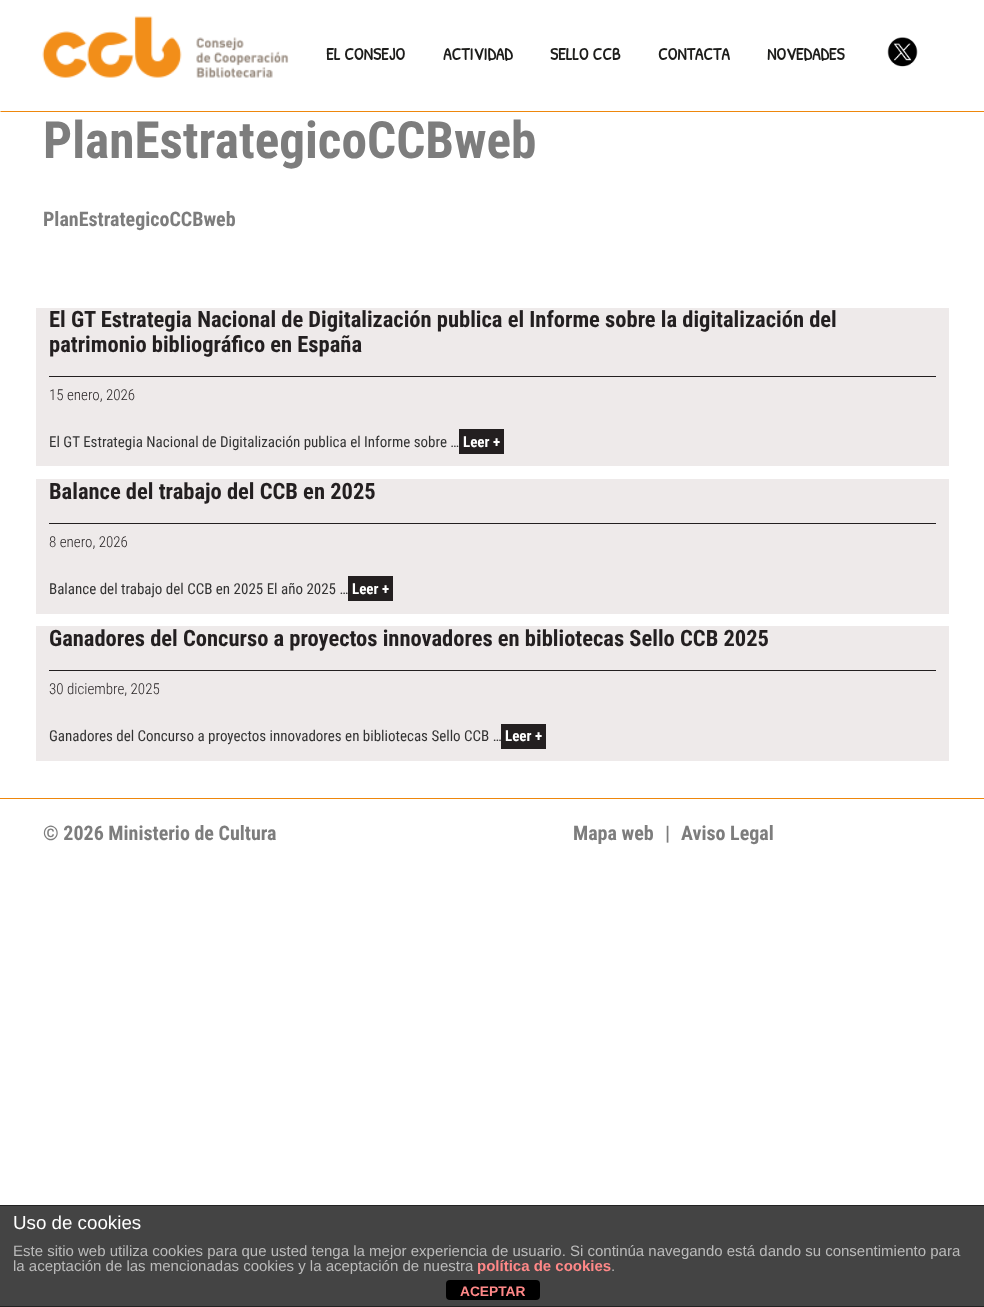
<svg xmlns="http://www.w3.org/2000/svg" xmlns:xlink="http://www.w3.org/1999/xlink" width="984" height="1307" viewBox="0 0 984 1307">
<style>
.cls-1{font:bold 17.5px Patrick Hand SC;fill:#1d1d1b}
.cls-2{font:bold 51.25px Roboto Condensed;fill:#7d7d7d}
.cls-3{font:bold 20px Roboto Condensed;fill:#7d7d7d}
.cls-4{font:bold 22.5px Roboto Condensed;fill:#231f20}
.cls-5{font:300 15px Roboto Condensed;fill:#231f20}
.cls-6{font:15px Roboto Condensed;fill:#333333}
.cls-7{font:bold 15px Roboto Condensed;fill:#ffffff}
.cls-8{font:18.75px Liberation Sans;fill:#ffffff}
.cls-9{font:15px Liberation Sans;fill:#bbbbbb}
.cls-10{font:bold 15px Liberation Sans;fill:#ff8888}
.cls-11{font:bold 13.75px Liberation Sans;fill:#ff8888}
</style>
<rect width="100%" height="100%" fill="#ffffff"/>
<path fill="#ee870c" d="M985 112H0L1 111H984Z"/>
<image xlink:href="image0.png" x="42" y="16" width="247" height="62"/>
<image xlink:href="image1.png" x="887" y="37" width="31" height="30"/>
<rect fill="#eeeaea" x="36" y="308" width="913" height="158"/>
<rect fill="#231f20" x="49" y="376" width="887" height="1"/>
<rect fill="#231f20" x="459" y="429" width="45" height="25"/>
<rect fill="#eeeaea" x="36" y="479" width="913" height="135"/>
<rect fill="#231f20" x="49" y="523" width="887" height="1"/>
<rect fill="#231f20" x="348" y="576" width="45" height="25"/>
<rect fill="#eeeaea" x="36" y="626" width="913" height="135"/>
<rect fill="#231f20" x="49" y="670" width="887" height="1"/>
<rect fill="#231f20" x="501" y="724" width="45" height="25"/>
<rect fill="#ee870c" x="0" y="798" width="984" height="1"/>
<rect fill="#444444" x="0" y="1206" width="984" height="100"/>
<rect fill="#222222" x="0" y="1205" width="984" height="1"/>
<rect fill="#222222" x="0" y="1306" width="984" height="1"/>
<rect fill="#000000" x="446" y="1280" width="94" height="20" rx="4"/>
<text class="cls-1" x="326" y="60">EL CONSEJO</text>
<text class="cls-1" x="443" y="60">ACTIVIDAD</text>
<text class="cls-1" x="550" y="60">SELLO CCB</text>
<text class="cls-1" x="658" y="60">CONTACTA</text>
<text class="cls-1" x="767" y="60">NOVEDADES</text>
<text class="cls-2" x="43" y="158">PlanEstrategicoCCBweb</text>
<text class="cls-3" x="43" y="226">PlanEstrategicoCCBweb</text>
<text class="cls-4"><tspan x="49" y="327">El GT Estrategia Nacional de Digitalización publica el Informe sobre la digitalización del</tspan><tspan x="49" y="352">patrimonio bibliográfico en España</tspan></text>
<text class="cls-5" x="49" y="400">15 enero, 2026</text>
<text class="cls-6" x="49" y="447">El GT Estrategia Nacional de Digitalización publica el Informe sobre …</text>
<text class="cls-7" x="463" y="447">Leer +</text>
<text class="cls-4" x="49" y="499">Balance del trabajo del CCB en 2025</text>
<text class="cls-5" x="49" y="547">8 enero, 2026</text>
<text class="cls-6" x="49" y="594">Balance del trabajo del CCB en 2025 El año 2025 …</text>
<text class="cls-7" x="352" y="594">Leer +</text>
<text class="cls-4" x="49" y="646">Ganadores del Concurso a proyectos innovadores en bibliotecas Sello CCB 2025</text>
<text class="cls-5" x="49" y="694">30 diciembre, 2025</text>
<text class="cls-6" x="49" y="741">Ganadores del Concurso a proyectos innovadores en bibliotecas Sello CCB …</text>
<text class="cls-7" x="505" y="741">Leer +</text>
<text class="cls-3" x="43" y="840">© 2026 Ministerio de Cultura</text>
<text class="cls-3" x="573" y="840">Mapa web</text>
<text class="cls-3" x="665" y="840">|</text>
<text class="cls-3" x="681" y="840">Aviso Legal</text>
<text class="cls-8" x="13" y="1229">Uso de cookies</text>
<text class="cls-9"><tspan x="13" y="1256">Este sitio web utiliza cookies para que usted tenga la mejor experiencia de usuario. Si continúa navegando está dando su consentimiento para</tspan><tspan x="13" y="1271">la aceptación de las mencionadas cookies y la aceptación de nuestra</tspan></text>
<text class="cls-10" x="477" y="1271">política de cookies</text>
<text class="cls-9" x="611" y="1271">.</text>
<text class="cls-11" x="460" y="1296">ACEPTAR</text>
</svg>
